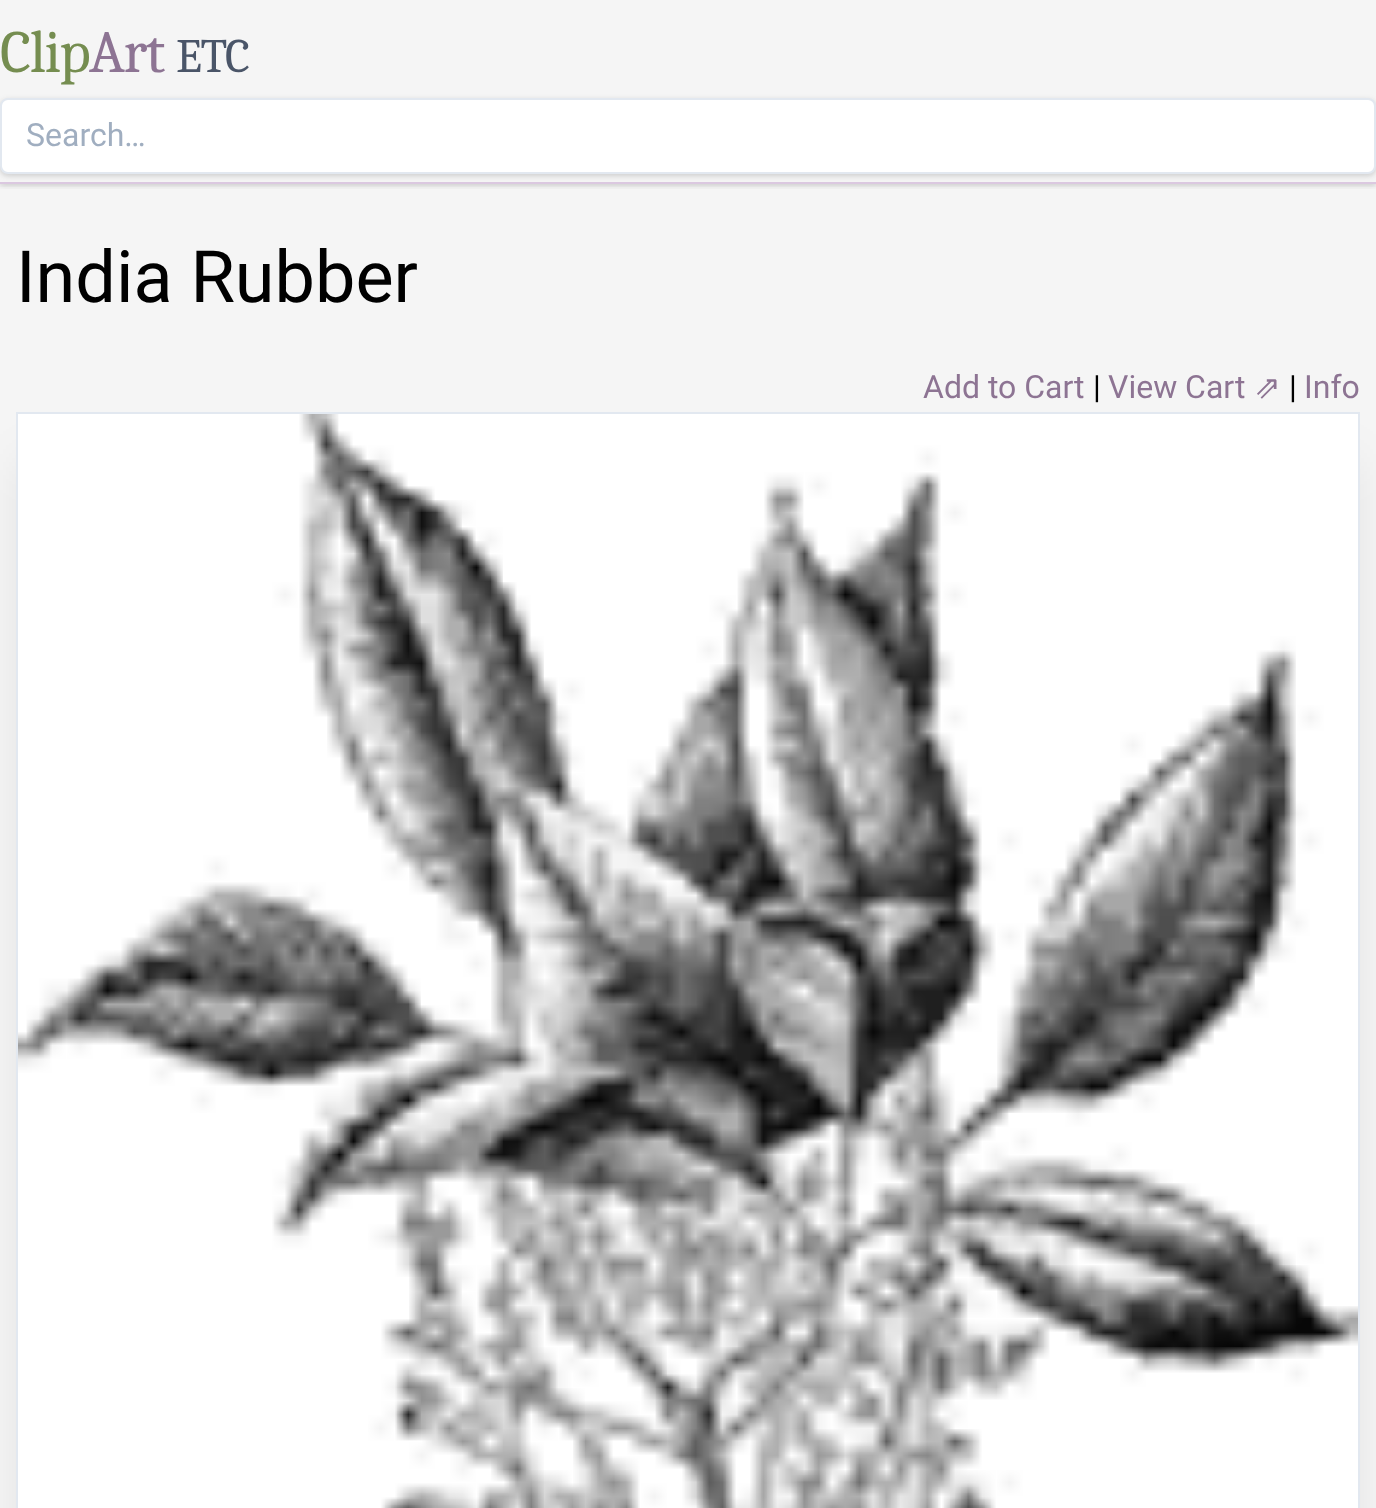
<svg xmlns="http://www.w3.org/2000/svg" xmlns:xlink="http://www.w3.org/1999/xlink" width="1376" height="1508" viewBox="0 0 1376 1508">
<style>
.cls-1{font:60px Caladea;letter-spacing:-1.5px;fill:#758d50}
.cls-2{font:60px Caladea;letter-spacing:-1.5px;fill:#8d7493}
.cls-3{font:48px Caladea;letter-spacing:-1.5px;fill:#4a5568}
.cls-4{font:32px Roboto;fill:#a0aec0}
.cls-5{font:72px Roboto;fill:#000000}
.cls-6{font:32px Roboto;fill:#8d7493}
.cls-7{font:32px Roboto;fill:#000000}
.cls-8{font:32px DejaVu Sans;fill:#8d7493}
</style>
<defs>
<clipPath id="clip1"><rect x="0" y="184" width="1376" height="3"/></clipPath>
<clipPath id="clip2"><rect x="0" y="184" width="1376" height="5"/></clipPath>
</defs>
<rect width="100%" height="100%" fill="#f5f5f5"/>
<g clip-path="url(#clip1)">
<rect fill="#000000" fill-opacity="0.06" filter="blur(2px)" x="0" y="2" width="1376" height="184"/>
</g>
<g clip-path="url(#clip2)">
<rect fill="#000000" fill-opacity="0.1" filter="blur(3px)" x="0" y="2" width="1376" height="184"/>
</g>
<rect fill="#dbc8e0" x="0" y="182" width="1376" height="2"/>
<rect fill="#000000" fill-opacity="0.06" filter="blur(2px)" x="0" y="100" width="1376" height="76" rx="8"/>
<rect fill="#000000" fill-opacity="0.1" filter="blur(3px)" x="0" y="100" width="1376" height="76" rx="8"/>
<rect fill="#ffffff" stroke="#e2e8f0" stroke-width="2" x="1" y="99" width="1374" height="74" rx="7"/>
<rect fill="#000000" fill-opacity="0.1" filter="blur(25px)" x="26" y="462" width="1324" height="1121"/>
<rect fill="none" stroke="#e2e8f0" stroke-width="2" x="17" y="413" width="1342" height="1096"/>
<image xlink:href="image0.png" x="18" y="414" width="1340" height="1094"/>
<text class="cls-1" x="0" y="72">Clip</text>
<text class="cls-2" x="89" y="72">Art</text>
<text class="cls-3" x="176" y="72">ETC</text>
<text class="cls-4" x="26" y="146">Search…</text>
<text class="cls-5" x="16" y="302">India Rubber</text>
<text class="cls-6" x="923" y="398">Add to Cart</text>
<text class="cls-7" x="1093" y="398">|</text>
<text class="cls-6" x="1108" y="398">View Cart</text>
<text class="cls-8" x="1254" y="398">⇗</text>
<text class="cls-7" x="1289" y="398">|</text>
<text class="cls-6" x="1304" y="398">Info</text>
</svg>
